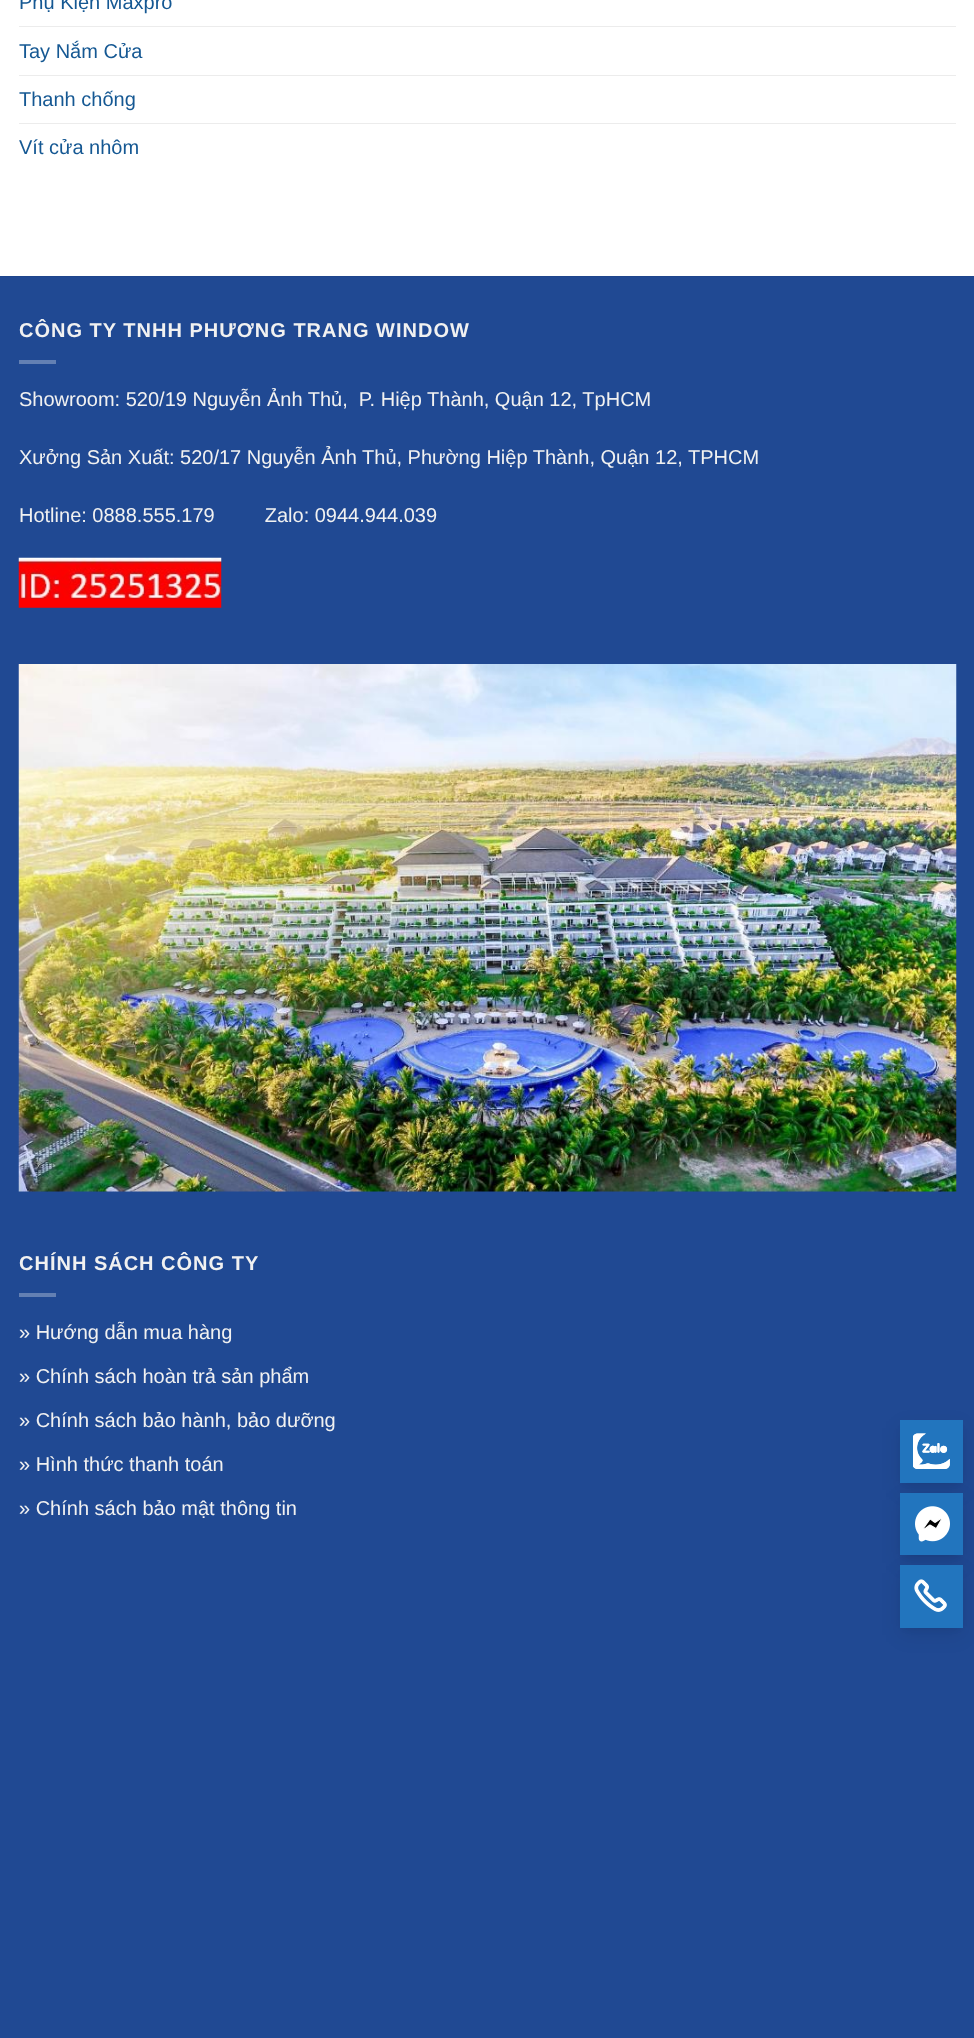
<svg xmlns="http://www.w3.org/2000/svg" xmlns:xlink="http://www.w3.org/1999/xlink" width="974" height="2038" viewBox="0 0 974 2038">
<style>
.cls-1{font:20px Liberation Sans;fill:#155893}
.cls-2{font:bold 20px Liberation Sans;letter-spacing:1px;fill:#f1f1f1}
.cls-3{font:20px Liberation Sans;fill:#f1f1f1}
</style>
<rect width="100%" height="100%" fill="#ffffff"/>
<rect fill="#ececec" x="19" y="26" width="937" height="1"/>
<rect fill="#ececec" x="19" y="75" width="937" height="1"/>
<rect fill="#ececec" x="19" y="123" width="937" height="1"/>
<rect fill="#204993" x="0" y="277" width="974" height="1761"/>
<rect fill="#1e458c" x="0" y="276" width="974" height="1"/>
<rect fill="#6380b3" x="19" y="360" width="37" height="4"/>
<image xlink:href="image0.png" x="18" y="557" width="204" height="51"/>
<image xlink:href="image1.png" x="18" y="664" width="939" height="528"/>
<rect fill="#6380b3" x="19" y="1293" width="37" height="4"/>
<rect fill="#000000" fill-opacity="0.12" filter="blur(4px)" x="905" y="1429" width="53" height="52"/>
<rect fill="#000000" fill-opacity="0.08" filter="blur(10px)" x="900" y="1428" width="63" height="62"/>
<rect fill="#2275be" x="900" y="1420" width="63" height="63"/>
<image xlink:href="image2.png" x="913" y="1433" width="37" height="36"/>
<rect fill="#000000" fill-opacity="0.12" filter="blur(4px)" x="905" y="1501" width="53" height="53"/>
<rect fill="#000000" fill-opacity="0.08" filter="blur(10px)" x="900" y="1500" width="63" height="63"/>
<rect fill="#2275be" x="900" y="1493" width="63" height="62"/>
<image xlink:href="image3.png" x="915" y="1506" width="35" height="36"/>
<rect fill="#000000" fill-opacity="0.12" filter="blur(4px)" x="905" y="1574" width="53" height="52"/>
<rect fill="#000000" fill-opacity="0.08" filter="blur(10px)" x="900" y="1573" width="63" height="62"/>
<rect fill="#2275be" x="900" y="1565" width="63" height="63"/>
<image xlink:href="image4.png" x="914" y="1579" width="33" height="33"/>
<text class="cls-1" x="19" y="9">Phụ Kiện Maxpro</text>
<text class="cls-1" x="19" y="58">Tay Nắm Cửa</text>
<text class="cls-1" x="19" y="106">Thanh chống</text>
<text class="cls-1" x="19" y="154">Vít cửa nhôm</text>
<text class="cls-2" x="19" y="337">CÔNG TY TNHH PHƯƠNG TRANG WINDOW</text>
<text class="cls-3" xml:space="preserve" x="19" y="406">Showroom: 520/19 Nguyễn Ảnh Thủ,  P. Hiệp Thành, Quận 12, TpHCM</text>
<text class="cls-3" x="19" y="464">Xưởng Sản Xuất: 520/17 Nguyễn Ảnh Thủ, Phường Hiệp Thành, Quận 12, TPHCM</text>
<text class="cls-3" xml:space="preserve" x="19" y="522">Hotline: 0888.555.179         Zalo: 0944.944.039</text>
<text class="cls-2" x="19" y="1270">CHÍNH SÁCH CÔNG TY</text>
<text class="cls-3" x="19" y="1339">» Hướng dẫn mua hàng</text>
<text class="cls-3" x="19" y="1383">» Chính sách hoàn trả sản phẩm</text>
<text class="cls-3" x="19" y="1427">» Chính sách bảo hành, bảo dưỡng</text>
<text class="cls-3" x="19" y="1471">» Hình thức thanh toán</text>
<text class="cls-3" x="19" y="1515">» Chính sách bảo mật thông tin</text>
</svg>
